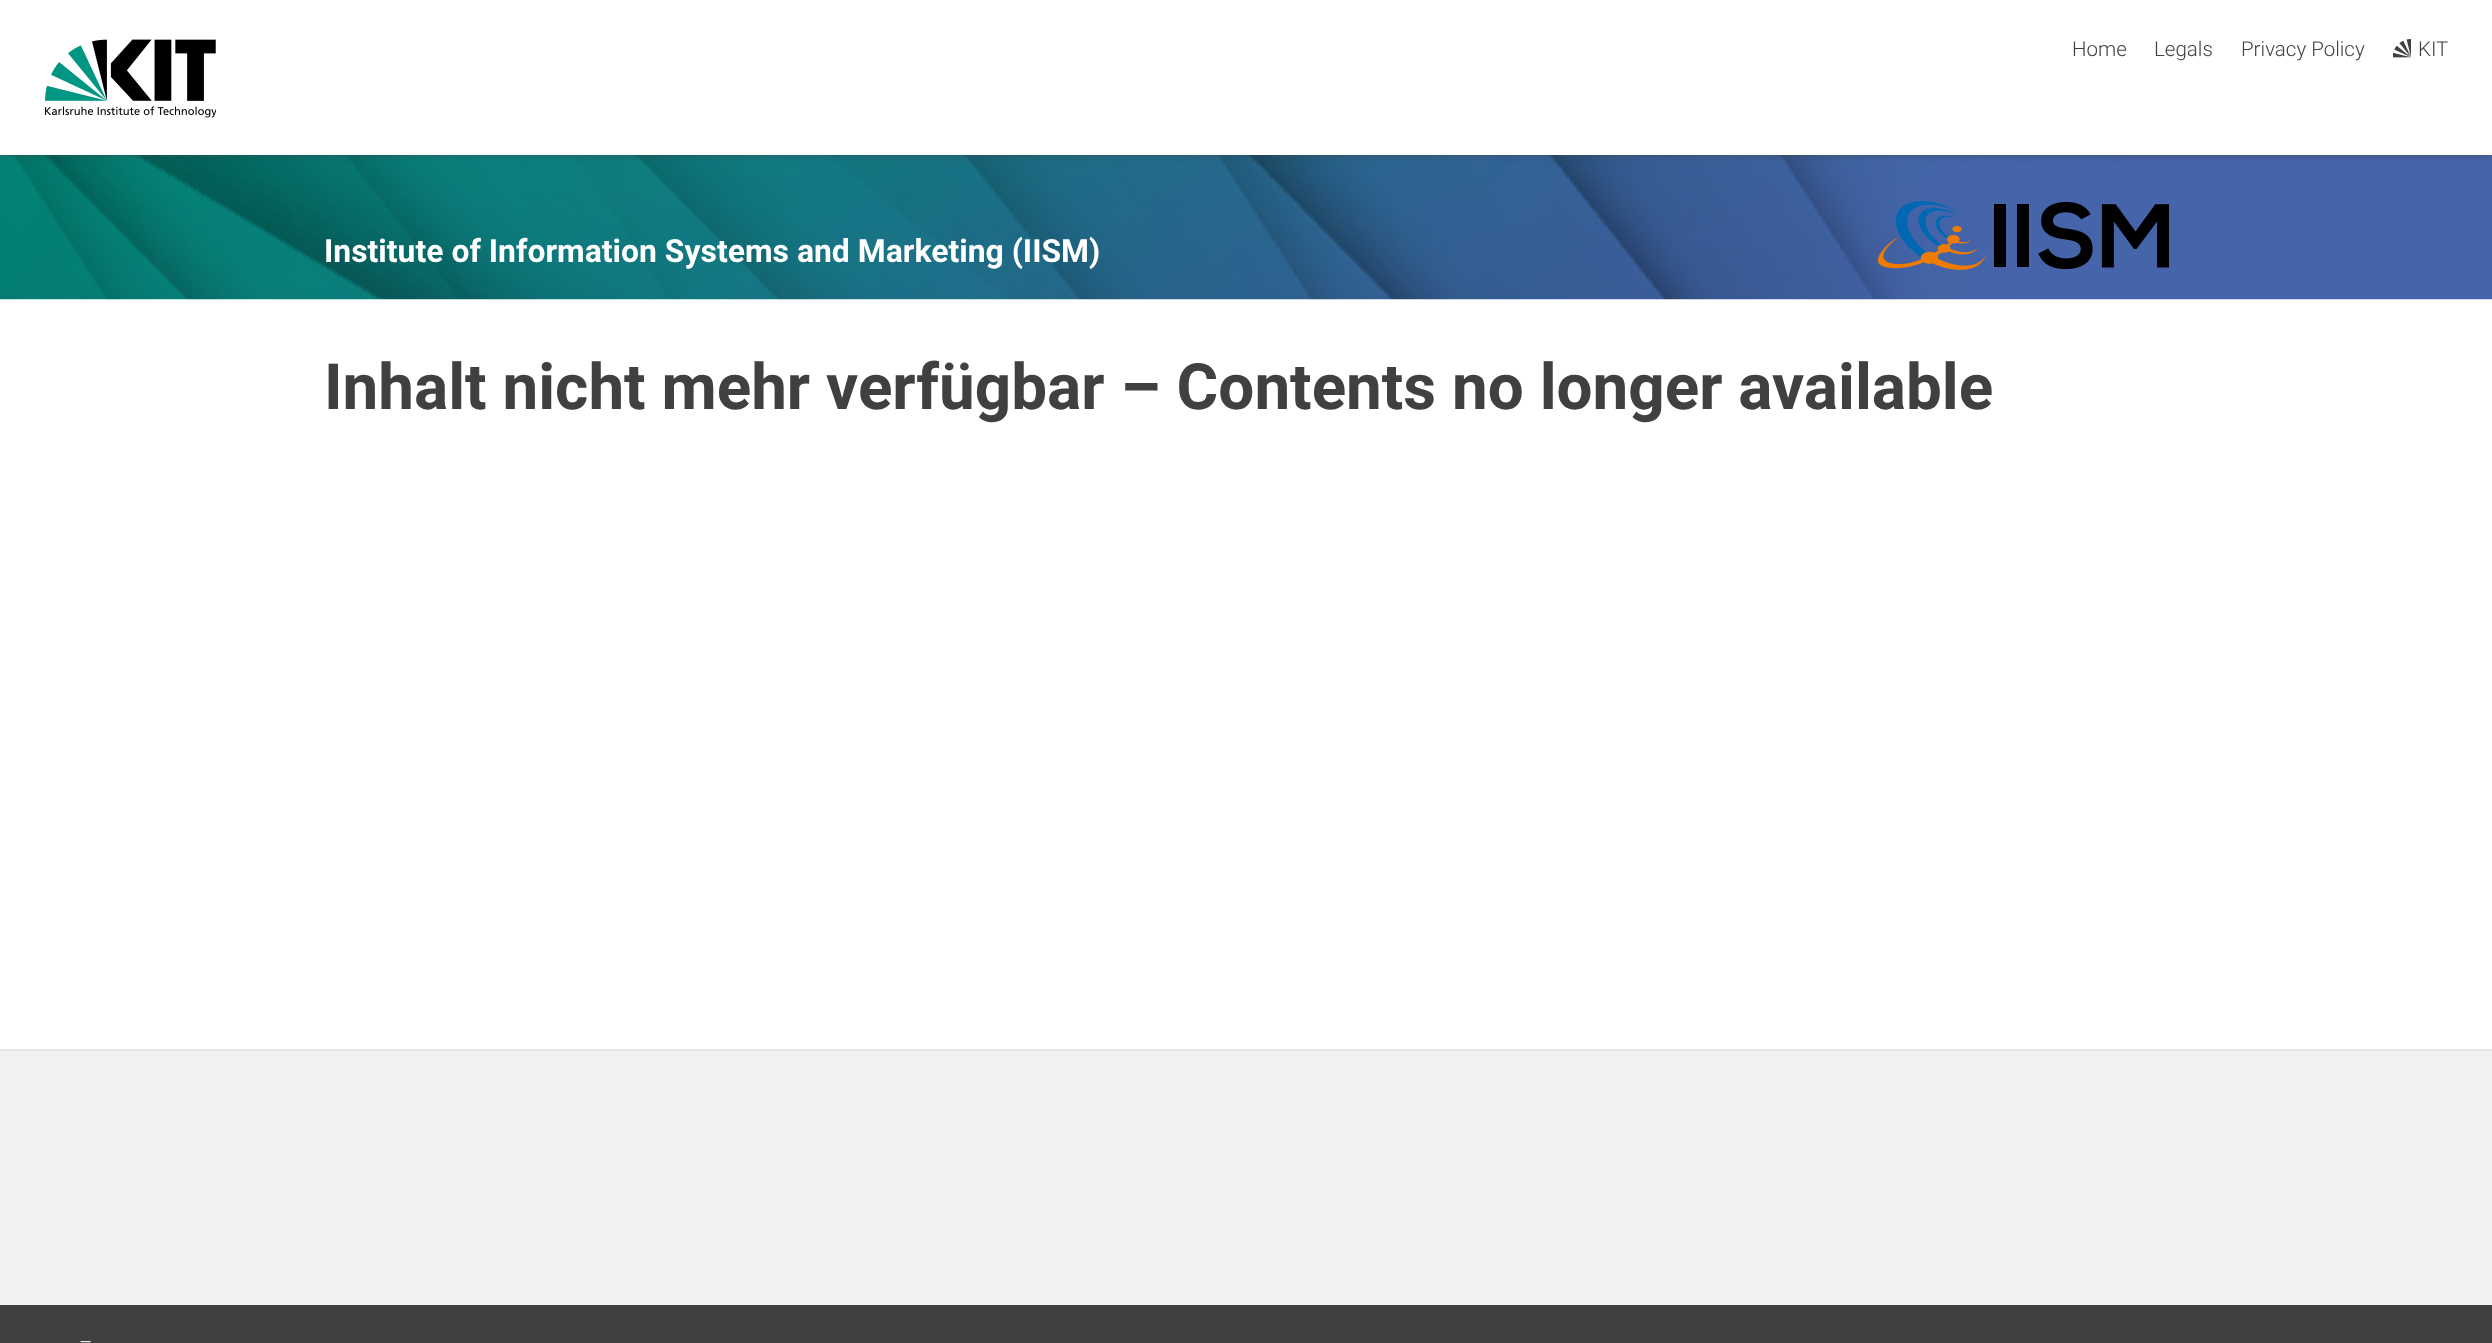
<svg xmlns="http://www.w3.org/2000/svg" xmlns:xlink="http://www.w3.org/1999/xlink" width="2492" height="1343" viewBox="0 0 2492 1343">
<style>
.cls-1{font:300 20.5px Roboto;fill:#404040}
.cls-2{font:bold 31.9px Roboto;fill:#ffffff}
.cls-3{font:bold 63.75px Roboto;fill:#404040}
.cls-4{font:300 20.5px Roboto;fill:#ffffff}
</style>
<rect width="100%" height="100%" fill="#ffffff"/>
<image xlink:href="image2.png" x="0" y="155" width="2492" height="145"/>
<rect fill="#404040" fill-opacity="0.5" filter="blur(4px)" x="0" y="0" width="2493" height="155"/>
<rect fill="#ffffff" x="0" y="0" width="2492" height="155"/>
<image xlink:href="image0.png" x="45" y="39" width="171" height="79"/>
<image xlink:href="image1.png" x="2393" y="39" width="18" height="19"/>
<image xlink:href="image3.png" x="1878" y="201" width="291" height="69"/>
<rect fill="#f2f2f2" x="0" y="1051" width="2492" height="254"/>
<rect fill="#e6e6e6" x="0" y="1049" width="2492" height="2"/>
<rect fill="#404040" x="0" y="1305" width="2492" height="38"/>
<text class="cls-1" x="2072" y="56">Home</text>
<text class="cls-1" x="2154" y="56">Legals</text>
<text class="cls-1" x="2241" y="56">Privacy Policy</text>
<text class="cls-1" x="2418" y="56">KIT</text>
<text class="cls-2" x="324" y="262">Institute of Information Systems and Marketing (IISM)</text>
<text class="cls-3" x="324" y="409">Inhalt nicht mehr verfügbar – Contents no longer available</text>
<text class="cls-4" x="79" y="1349">–</text>
</svg>
